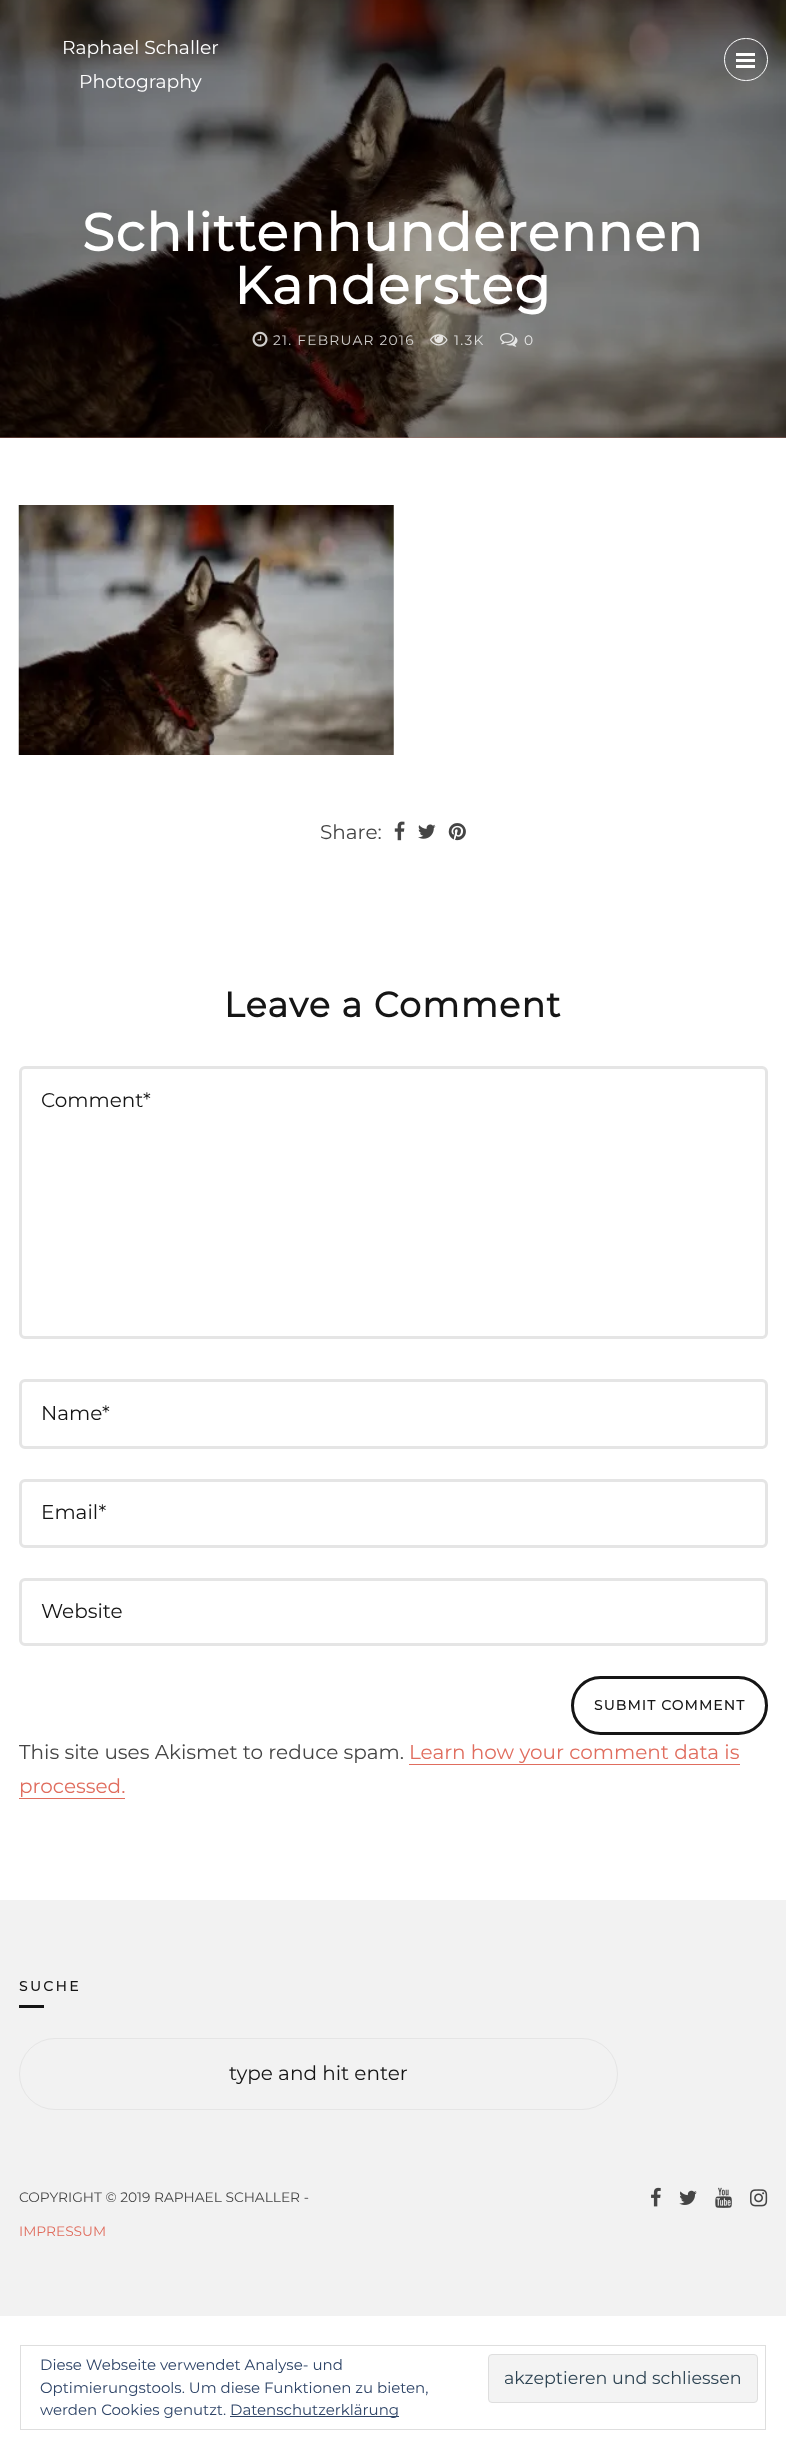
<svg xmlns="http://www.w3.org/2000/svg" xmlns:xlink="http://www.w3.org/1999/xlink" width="786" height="2449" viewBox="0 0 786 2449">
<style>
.cls-1{font:100 18.75px Montserrat;fill:#ffffff}
.cls-2{font:bold 52.5px Montserrat;letter-spacing:1.25px;fill:#ffffff}
.cls-3{font:100 13.75px Montserrat;letter-spacing:1.25px;fill:#d2d0ce}
.cls-4{font:100 13.75px Montserrat;letter-spacing:1.25px;fill:#e0dfde}
.cls-5{font:100 13.75px Montserrat;letter-spacing:1.25px;fill:#e6e6e5}
.cls-6{font:100 20px Montserrat;fill:#454545}
.cls-7{font:bold 35px Montserrat;letter-spacing:1.25px;fill:#151515}
.cls-8{font:100 20px Montserrat;fill:#151515}
.cls-9{font:bold 13.75px Montserrat;letter-spacing:1.25px;fill:#151515}
.cls-10{font:100 20px Montserrat;fill:#e06d5e}
.cls-11{font:bold 13.75px Montserrat;letter-spacing:2.5px;fill:#151515}
.cls-12{font:100 13.75px Montserrat;fill:#454545}
.cls-13{font:100 13.75px Montserrat;fill:#e06d5e}
.cls-14{font:100 15px Montserrat;fill:#2e4467}
.cls-15{font:100 17.5px Montserrat;fill:#2e4453}
</style>
<rect width="100%" height="100%" fill="#ffffff"/>
<rect fill="#9d6861" x="0" y="437" width="786" height="1"/>
<image xlink:href="image0.png" x="0" y="0" width="786" height="438"/>
<rect fill="none" stroke="#ffffff" x="724.5" y="38.5" width="43" height="42" rx="21"/>
<rect fill="#ffffff" x="736" y="59" width="19" height="3"/>
<rect fill="#ffffff" x="736" y="53" width="19" height="3"/>
<rect fill="#ffffff" x="736" y="65" width="19" height="3"/>
<image xlink:href="image1.png" x="252" y="331" width="16" height="16"/>
<image xlink:href="image2.png" x="430" y="334" width="18" height="12"/>
<image xlink:href="image3.png" x="500" y="333" width="18" height="14"/>
<image xlink:href="image4.png" x="18" y="505" width="376" height="250"/>
<image xlink:href="image5.png" x="394" y="821" width="11" height="20"/>
<image xlink:href="image6.png" x="418" y="824" width="18" height="15"/>
<image xlink:href="image7.png" x="448" y="823" width="18" height="18"/>
<rect fill="none" stroke="#e5e5e5" stroke-width="3" x="20.5" y="1067.5" width="746" height="270" rx="4.5"/>
<rect fill="none" stroke="#e5e5e5" stroke-width="3" x="20.5" y="1380.5" width="746" height="67" rx="4.5"/>
<rect fill="none" stroke="#e5e5e5" stroke-width="3" x="20.5" y="1480.5" width="746" height="66" rx="4.5"/>
<rect fill="none" stroke="#e5e5e5" stroke-width="3" x="20.5" y="1579.5" width="746" height="65" rx="4.5"/>
<rect fill="none" stroke="#151515" stroke-width="3" x="572.5" y="1677.5" width="194" height="56" rx="28"/>
<rect fill="#e06d5e" x="409" y="1764" width="331" height="1"/>
<rect fill="#e06d5e" x="19" y="1798" width="106" height="1"/>
<rect fill="#f2f2f2" x="0" y="1900" width="786" height="416"/>
<rect fill="#151515" x="19" y="2005" width="25" height="3"/>
<rect fill="none" stroke="#e5e5e5" x="19.5" y="2038.5" width="598" height="71" rx="35.5"/>
<image xlink:href="image8.png" x="651" y="2187" width="10" height="20"/>
<image xlink:href="image9.png" x="679" y="2190" width="18" height="15"/>
<image xlink:href="image10.png" x="715" y="2187" width="17" height="21"/>
<image xlink:href="image11.png" x="750" y="2189" width="18" height="18"/>
<rect fill="none" stroke="#dedede" x="20.5" y="2345.5" width="745" height="84"/>
<rect fill="#f3f3f3" stroke="#dedede" x="488.5" y="2354.5" width="269" height="48" rx="3.5"/>
<rect fill="#2e4467" x="230" y="2416" width="169" height="1"/>
<text class="cls-1" x="62" y="54">Raphael Schaller</text>
<text class="cls-1" x="79" y="88">Photography</text>
<text class="cls-2" x="82" y="251">Schlittenhunderennen</text>
<text class="cls-2" x="234" y="304">Kandersteg</text>
<text class="cls-3" x="273" y="345">21. FEBRUAR 2016</text>
<text class="cls-4" x="454" y="345">1.3K</text>
<text class="cls-5" x="524" y="345">0</text>
<text class="cls-6" x="320" y="839">Share:</text>
<text class="cls-7" x="224" y="1017">Leave a Comment</text>
<text class="cls-8" x="41" y="1107">Comment*</text>
<text class="cls-8" x="41" y="1420">Name*</text>
<text class="cls-8" x="41" y="1519">Email*</text>
<text class="cls-8" x="41" y="1618">Website</text>
<text class="cls-9" x="594" y="1710">SUBMIT COMMENT</text>
<text class="cls-6" x="19" y="1759">This site uses Akismet to reduce spam.</text>
<text class="cls-10" x="409" y="1759">Learn how your comment data is</text>
<text class="cls-10" x="19" y="1793">processed.</text>
<text class="cls-11" x="19" y="1991">SUCHE</text>
<text class="cls-8" x="229" y="2080">type and hit enter</text>
<text class="cls-12" x="19" y="2202">COPYRIGHT © 2019 RAPHAEL SCHALLER -</text>
<text class="cls-13" x="19" y="2236">IMPRESSUM</text>
<text class="cls-14"><tspan x="40" y="2370">Diese Webseite verwendet Analyse- und</tspan><tspan x="40" y="2393">Optimierungstools. Um diese Funktionen zu bieten,</tspan></text>
<text class="cls-15" x="504" y="2384">akzeptieren und schliessen</text>
<text class="cls-14" x="40" y="2415">werden Cookies genutzt.</text>
<text class="cls-14" x="230" y="2415">Datenschutzerklärung</text>
</svg>
